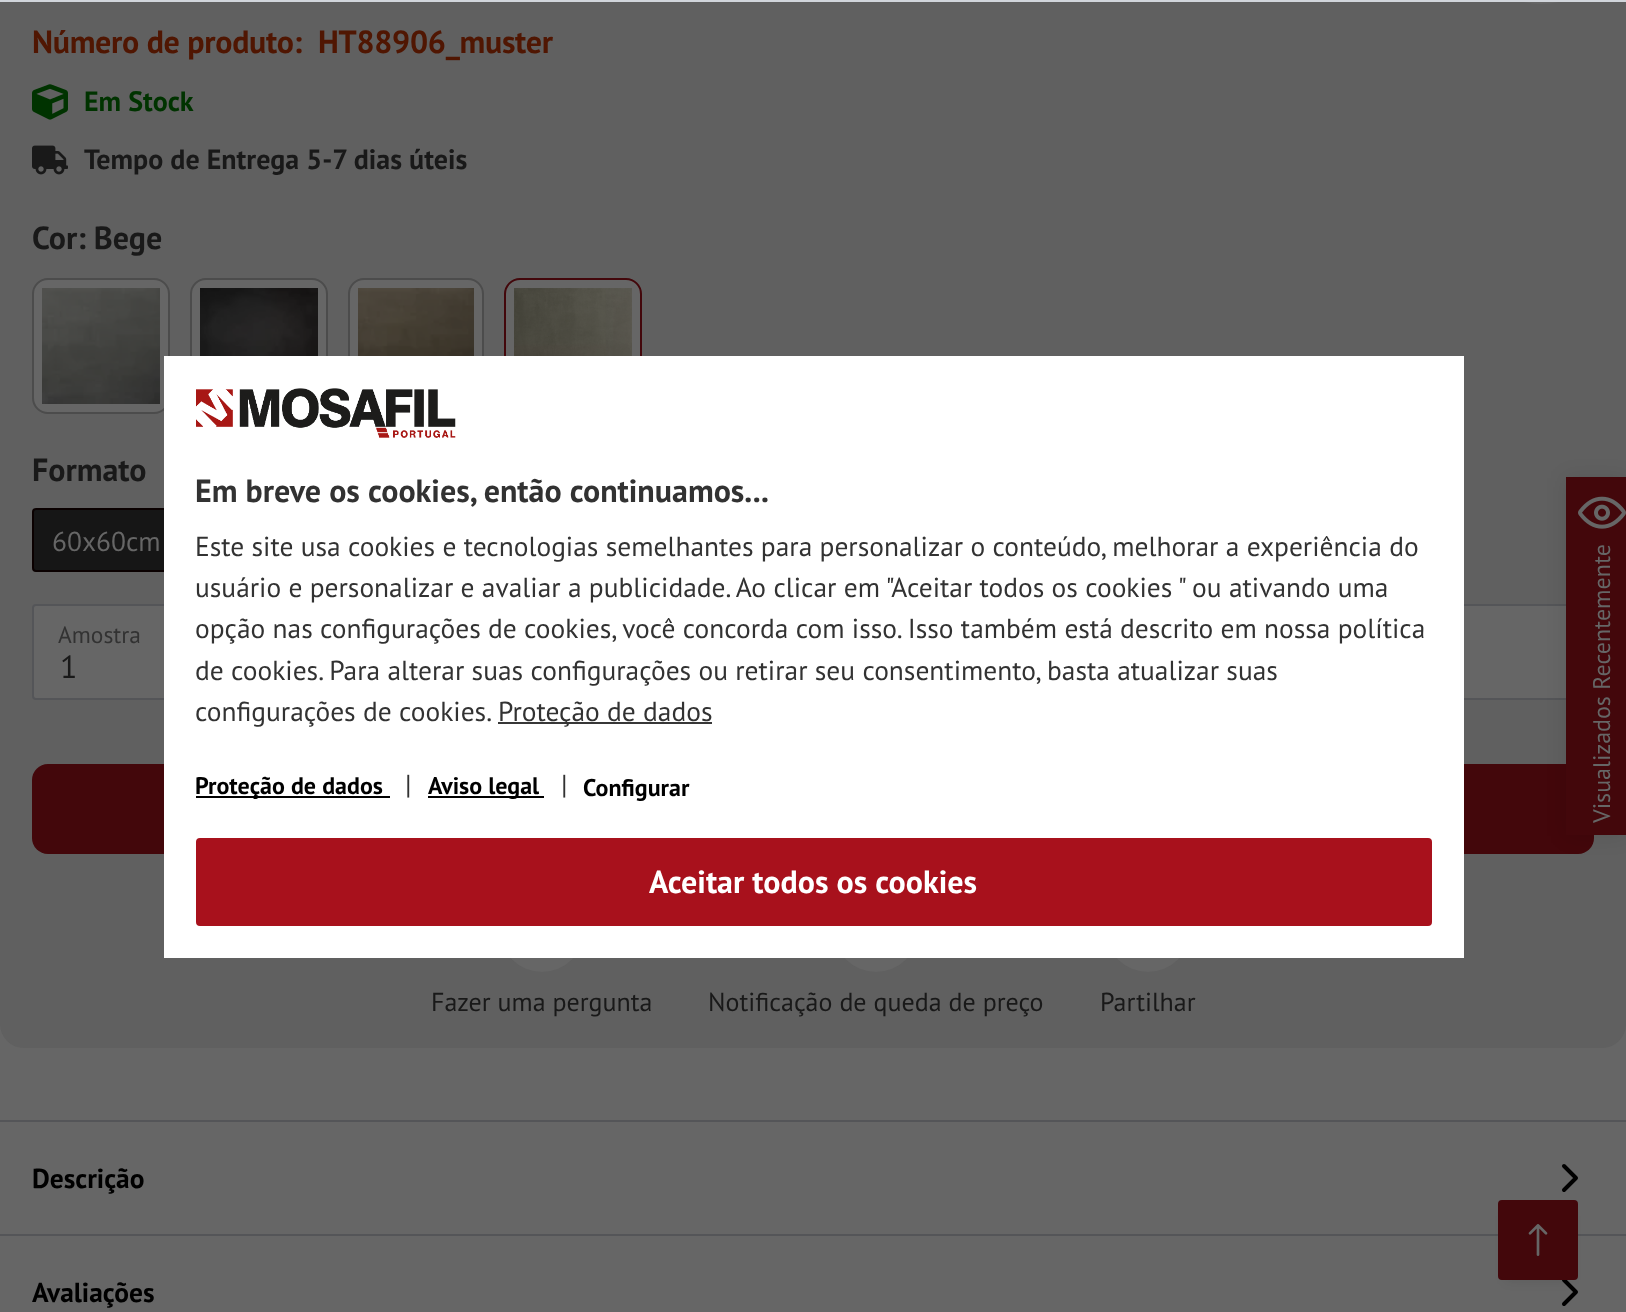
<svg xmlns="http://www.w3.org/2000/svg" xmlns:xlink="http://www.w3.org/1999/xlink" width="1626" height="1312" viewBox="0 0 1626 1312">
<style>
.cls-1{font:bold 32px PT Sans;letter-spacing:-0.3px;fill:#501602}
.cls-2{font:bold 28px PT Sans;fill:#003300}
.cls-3{font:bold 28px PT Sans;fill:#191919}
.cls-4{font:bold 32px PT Sans;fill:#191919}
.cls-5{font:27.45px PT Sans;fill:#666666}
.cls-6{font:23.5px PT Sans;fill:#323232}
.cls-7{font:32px PT Sans;fill:#191919}
.cls-8{font:26px PT Sans;fill:#191919}
.cls-9{font:bold 27.45px PT Sans;fill:#000000}
.cls-10{font:bold 32px PT Sans;fill:#323232}
.cls-11{font:27.45px PT Sans;fill:#323232}
.cls-12{font:bold 24px PT Sans;fill:#000000}
.cls-13{font:bold 32px PT Sans;fill:#ffffff}
.cls-14{font:24px PT Sans;fill:#666666}
</style>
<rect width="100%" height="100%" fill="#666666"/>
<rect fill="#606060" x="0" y="-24" width="1626" height="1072" rx="24"/>
<rect fill="#666666" x="1494" y="-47" width="94" height="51" rx="47"/>
<image xlink:href="image0.png" x="32" y="84" width="36" height="36"/>
<image xlink:href="image1.png" x="32" y="145" width="36" height="30"/>
<rect fill="#666666" stroke="#4c4c4c" stroke-width="2" x="33" y="279" width="136" height="134" rx="15"/>
<image xlink:href="image2.png" x="42" y="288" width="118" height="116"/>
<rect fill="#666666" stroke="#4c4c4c" stroke-width="2" x="191" y="279" width="136" height="134" rx="15"/>
<image xlink:href="image3.png" x="200" y="288" width="118" height="68"/>
<rect fill="#666666" stroke="#4c4c4c" stroke-width="2" x="349" y="279" width="134" height="134" rx="15"/>
<image xlink:href="image4.png" x="358" y="288" width="116" height="68"/>
<rect fill="#666666" stroke="#43070b" stroke-width="2" x="505" y="279" width="136" height="134" rx="15"/>
<image xlink:href="image5.png" x="514" y="288" width="118" height="68"/>
<rect fill="#161616" stroke="#0a0000" stroke-width="2" x="33" y="509" width="146" height="62" rx="3"/>
<rect fill="#666666" stroke="#545558" stroke-width="2" x="33" y="605" width="1560" height="94" rx="3"/>
<rect fill="#43070b" x="32" y="764" width="1562" height="90" rx="16"/>
<circle fill="#666666" cx="542" cy="930" r="42"/>
<circle fill="#666666" cx="876" cy="930" r="42"/>
<circle fill="#666666" cx="1148" cy="930" r="42"/>
<rect fill="#545558" x="0" y="1120" width="1626" height="2"/>
<rect fill="#545558" x="0" y="1234" width="1626" height="2"/>
<path fill="none" stroke="#000000" stroke-width="4" stroke-linecap="round" stroke-linejoin="round" d="M1564 1190L1576 1178L1564 1166"/>
<path fill="none" stroke="#000000" stroke-width="4" stroke-linecap="round" stroke-linejoin="round" d="M1564 1304L1576 1292L1564 1280"/>
<rect fill="#d1d5db" x="0" y="0" width="1626" height="2"/>
<rect fill="#ffffff" x="164" y="356" width="1300" height="602"/>
<image xlink:href="image6.png" x="196" y="388" width="260" height="50"/>
<rect fill="#373737" x="498" y="722" width="214" height="2"/>
<rect fill="#000000" x="196" y="796" width="194" height="2"/>
<rect fill="#000000" x="428" y="796" width="116" height="2"/>
<rect fill="#a8111c" stroke="#a8111c" stroke-width="2" x="197" y="839" width="1234" height="86" rx="3"/>
<rect fill="#000000" fill-opacity="0.1" filter="blur(10px)" x="1566" y="478" width="60" height="358"/>
<path fill="#43070b" d="M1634 835H1566V477H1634C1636 477 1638 479 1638 481V831C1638 833 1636 835 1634 835Z"/>
<image xlink:href="image7.png" x="1578" y="496" width="48" height="33"/>
<rect fill="#000000" fill-opacity="0.1" filter="blur(6px)" x="1506" y="1216" width="64" height="64"/>
<rect fill="#43070b" stroke="#43070b" stroke-width="2" x="1499" y="1201" width="78" height="78" rx="3"/>
<image xlink:href="image8.png" x="1528" y="1224" width="20" height="32"/>
<text class="cls-1" x="32" y="53">Número de produto:</text>
<text class="cls-1" x="318" y="53">HT88906_muster</text>
<text class="cls-2" x="84" y="111">Em Stock</text>
<text class="cls-3" x="84" y="169">Tempo de Entrega 5-7 dias úteis</text>
<text class="cls-4" x="32" y="249">Cor: Bege</text>
<text class="cls-4" x="32" y="481">Formato</text>
<text class="cls-5" x="52" y="551">60x60cm</text>
<text class="cls-6" x="58" y="643">Amostra</text>
<text class="cls-7" x="60" y="678">1</text>
<text class="cls-8" x="431" y="1011">Fazer uma pergunta</text>
<text class="cls-8" x="708" y="1011">Notificação de queda de preço</text>
<text class="cls-8" x="1100" y="1011">Partilhar</text>
<text class="cls-9" x="32" y="1188">Descrição</text>
<text class="cls-9" x="32" y="1302">Avaliações</text>
<text class="cls-10" x="195" y="502">Em breve os cookies, então continuamos...</text>
<text class="cls-11"><tspan x="195" y="556">Este site usa cookies e tecnologias semelhantes para personalizar o conteúdo, melhorar a experiência do</tspan><tspan x="195" y="597">usuário e personalizar e avaliar a publicidade. Ao clicar em "Aceitar todos os cookies " ou ativando uma</tspan><tspan x="195" y="638">opção nas configurações de cookies, você concorda com isso. Isso também está descrito em nossa política</tspan><tspan x="195" y="680">de cookies. Para alterar suas configurações ou retirar seu consentimento, basta atualizar suas</tspan><tspan x="195" y="721">configurações de cookies.</tspan></text>
<text class="cls-11" x="498" y="721">Proteção de dados</text>
<text class="cls-12" x="195" y="794">Proteção de dados</text>
<text class="cls-11" x="405" y="794">|</text>
<text class="cls-12" x="428" y="794">Aviso legal</text>
<text class="cls-11" x="561" y="794">|</text>
<text class="cls-12" x="583" y="796">Configurar</text>
<text class="cls-13" x="649" y="893">Aceitar todos os cookies</text>
<text class="cls-14" x="1610" y="823" transform="rotate(-90 1610 823)">Visualizados Recentemente</text>
</svg>
